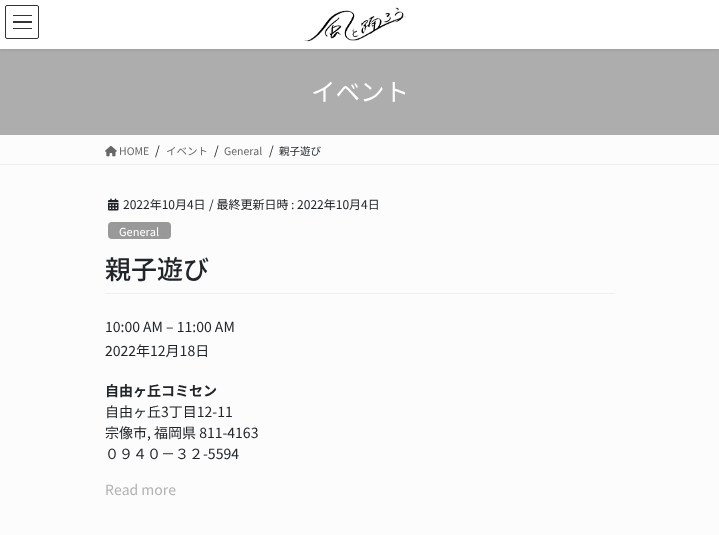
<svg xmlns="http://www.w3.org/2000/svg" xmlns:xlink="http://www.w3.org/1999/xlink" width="719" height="535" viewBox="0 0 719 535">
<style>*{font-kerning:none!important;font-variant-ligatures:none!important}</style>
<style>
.cls-1{font:24.5px Noto Sans JP;fill:#ffffff}
.cls-2{font:10.5px Noto Sans JP;fill:#666666}
.cls-3{font:12px Noto Sans JP;fill:#212529}
.cls-4{font:10.5px Noto Sans JP;fill:#212529}
.cls-5{font:11px Noto Sans JP;fill:#ffffff}
.cls-6{font:500 26px Noto Sans JP;fill:#212529}
.cls-7{font:14px Noto Sans JP;fill:#212529}
.cls-8{font:bold 14px Noto Sans JP;fill:#212529}
.cls-9{font:14px Noto Sans JP;fill:#b2b2b2}
</style>
<rect width="100%" height="100%" fill="#fcfcfc"/>
<rect fill="#adadad" x="0" y="49" width="719" height="86"/>
<rect fill="#000000" fill-opacity="0.1" filter="blur(1.5px)" x="0" y="1" width="719" height="49"/>
<rect fill="#ffffff" x="0" y="0" width="719" height="49"/>
<image xlink:href="image0.png" x="303" y="7" width="103" height="35"/>
<rect fill="#333333" x="13" y="15" width="19" height="1"/>
<rect fill="#333333" x="13" y="21" width="19" height="2"/>
<rect fill="#333333" x="13" y="28" width="19" height="1"/>
<rect fill="none" stroke="#333333" x="5.5" y="5.5" width="33" height="33" rx="1.5"/>
<rect fill="#efefef" x="0" y="164" width="719" height="1"/>
<image xlink:href="image1.png" x="105" y="145" width="12" height="12"/>
<rect fill="#efefef" x="105" y="293" width="510" height="1"/>
<image xlink:href="image2.png" x="108" y="198" width="11" height="13"/>
<rect fill="#999999" x="108" y="222" width="63" height="17" rx="4"/>
<text class="cls-1" x="311" y="101">イベント</text>
<text class="cls-2" x="119" y="155">HOME</text>
<text class="cls-3" x="155" y="155">/</text>
<text class="cls-2" x="166" y="155">イベント</text>
<text class="cls-3" x="214" y="155">/</text>
<text class="cls-2" x="224" y="155">General</text>
<text class="cls-3" x="269" y="155">/</text>
<text class="cls-4" x="279" y="155">親子遊び</text>
<text class="cls-3" x="123" y="209">2022年10月4日</text>
<text class="cls-3" x="209" y="209">/ 最終更新日時 : 2022年10月4日</text>
<text class="cls-5" x="119" y="236">General</text>
<text class="cls-6" x="105" y="279">親子遊び</text>
<text class="cls-7"><tspan x="105" y="332">10:00 AM – 11:00 AM</tspan><tspan x="105" y="356">2022年12月18日</tspan></text>
<text class="cls-8" x="105" y="396">自由ヶ丘コミセン</text>
<text class="cls-7"><tspan x="105" y="417">自由ヶ丘3丁目12-11</tspan><tspan x="105" y="438">宗像市, 福岡県 811-4163</tspan><tspan x="105" y="459">０９４０－３２-5594</tspan></text>
<text class="cls-9" x="105" y="495">Read more</text>
</svg>
